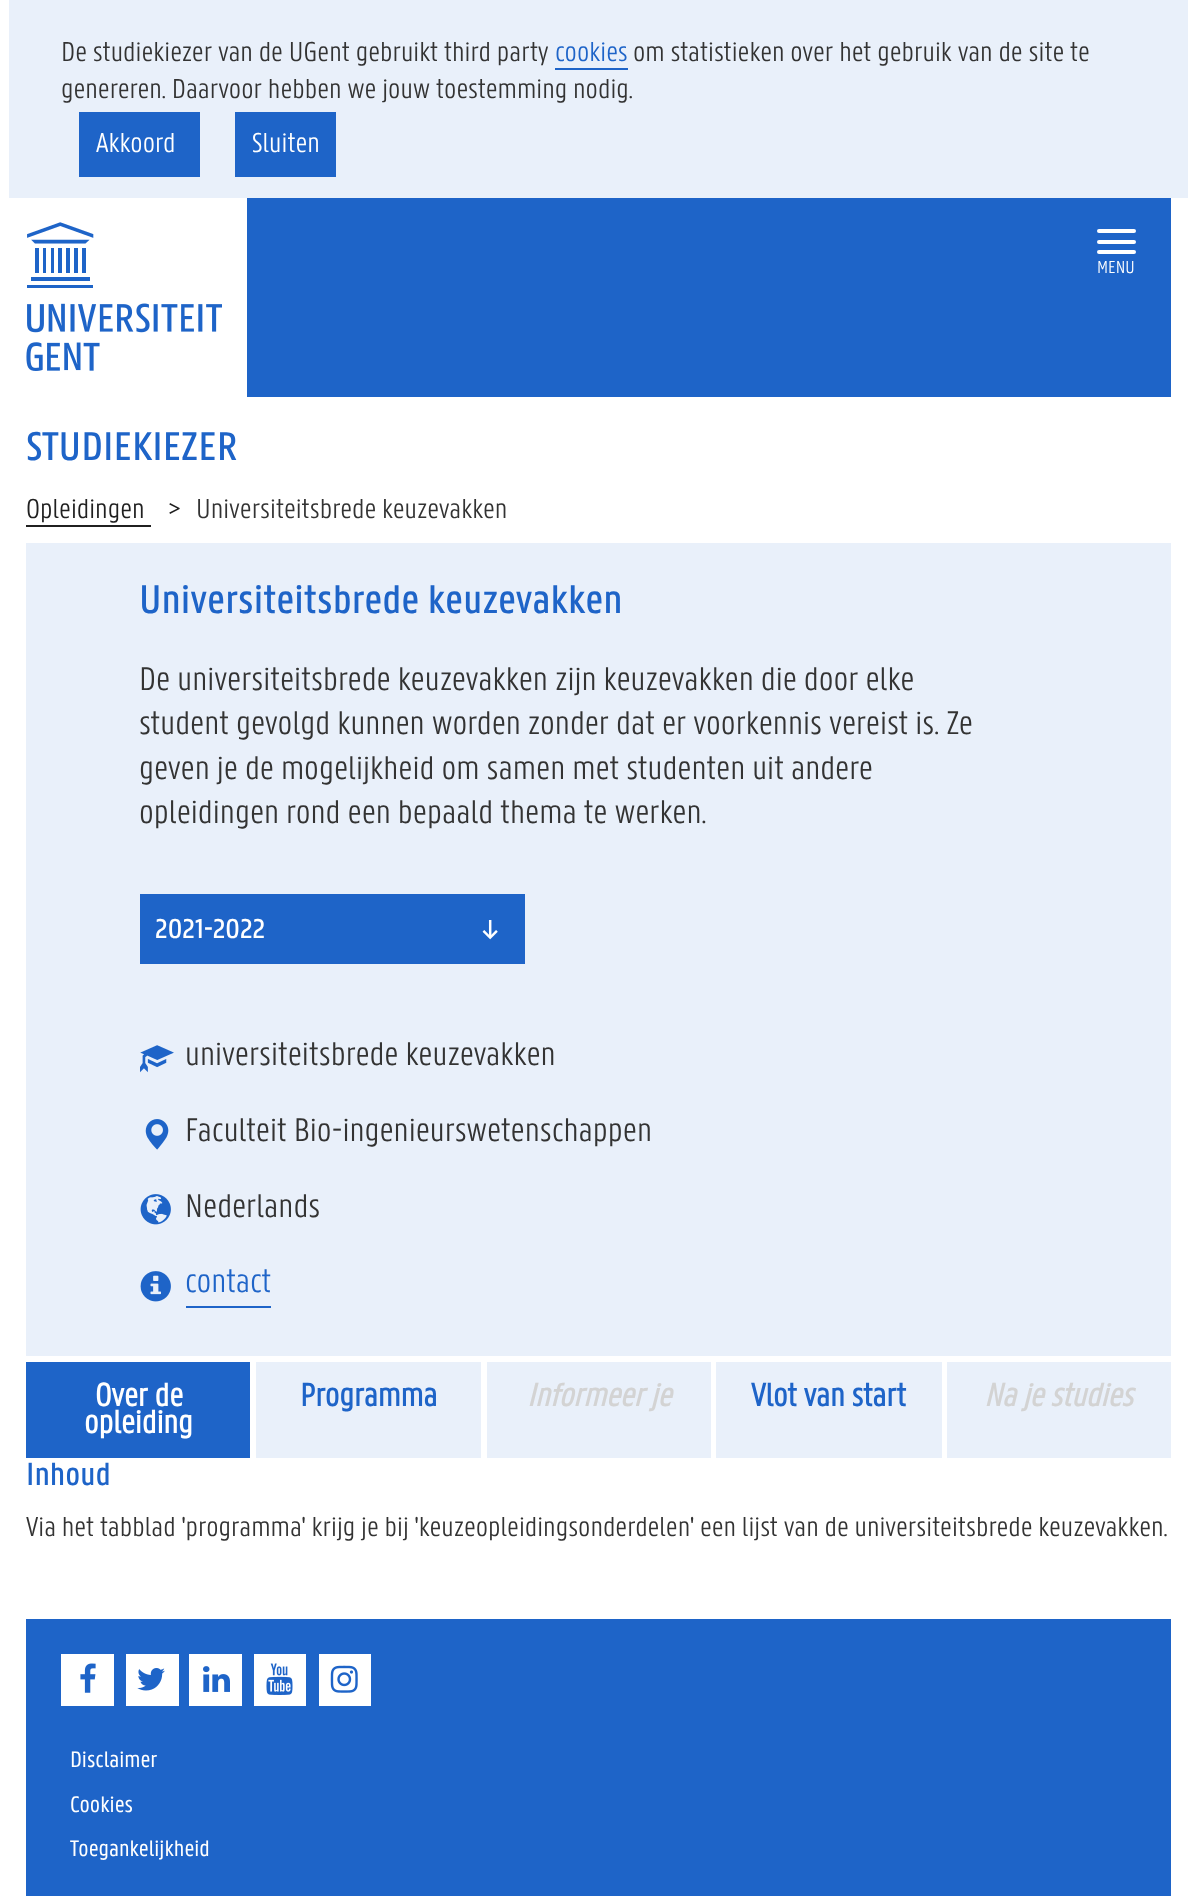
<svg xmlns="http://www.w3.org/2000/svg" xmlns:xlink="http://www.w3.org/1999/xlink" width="1196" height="1896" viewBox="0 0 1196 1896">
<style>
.cls-1{font:300 29.75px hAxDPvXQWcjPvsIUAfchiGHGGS;fill:#333333}
.cls-2{font:300 29.75px hAxDPvXQWcjPvsIUAfchiGHGGS;fill:#1e64c8}
.cls-3{font:300 29.75px hAxDPvXQWcjPvsIUAfchiGHGGS;fill:#ffffff}
.cls-4{font:300 19px hAxDPvXQWcjPvsIUAfchiGHGGS;fill:#ffffff}
.cls-5{font:500 43.75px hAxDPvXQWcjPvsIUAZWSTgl;fill:#1e64c8}
.cls-6{font:300 29.75px hAxDPvXQWcjPvsIUAfchiGHGGS;fill:#202020}
.cls-7{font:300 35.7px hAxDPvXQWcjPvsIUAfchiGHGGS;fill:#333333}
.cls-8{font:500 29.75px hAxDPvXQWcjPvsIUAZWSTgl;fill:#ffffff}
.cls-9{font:300 35.7px hAxDPvXQWcjPvsIUAfchiGHGGS;fill:#1e64c8}
.cls-10{font:bold 35px hAxDPvXQWcjPvsIUAfchiGHGGS;fill:#ffffff}
.cls-11{font:bold 35px hAxDPvXQWcjPvsIUAfchiGHGGS;fill:#1e64c8}
.cls-12{font:italic bold 35px hAxDPvXQWcjPvsIUAfchiGHGGS;fill:#d3d3d3}
.cls-13{font:500 35px hAxDPvXQWcjPvsIUAZWSTgl;fill:#1e64c8}
.cls-14{font:24.5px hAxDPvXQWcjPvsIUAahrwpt;fill:#ffffff}
</style>
<rect width="100%" height="100%" fill="#ffffff"/>
<rect fill="#e9f0fa" x="9" y="0" width="1179" height="198"/>
<rect fill="#1e64c8" x="555" y="68" width="73" height="2"/>
<rect fill="#1e64c8" x="79" y="112" width="121" height="65"/>
<rect fill="#1e64c8" x="235" y="112" width="101" height="65"/>
<rect fill="#1e64c8" x="247" y="198" width="924" height="199"/>
<image xlink:href="image0.png" x="26" y="222" width="196" height="149"/>
<rect fill="#ffffff" x="1097" y="229" width="39" height="4" rx="2"/>
<rect fill="#ffffff" x="1097" y="240" width="39" height="4" rx="2"/>
<rect fill="#ffffff" x="1097" y="250" width="39" height="4" rx="2"/>
<rect fill="#202020" x="26" y="525" width="125" height="2"/>
<rect fill="#e9f0fa" x="26" y="543" width="1145" height="813"/>
<rect fill="#1e64c8" x="140" y="894" width="385" height="70"/>
<image xlink:href="image1.png" x="140" y="1045" width="34" height="28"/>
<image xlink:href="image2.png" x="145" y="1119" width="24" height="31"/>
<image xlink:href="image3.png" x="140" y="1194" width="31" height="31"/>
<image xlink:href="image4.png" x="140" y="1271" width="31" height="31"/>
<rect fill="#1e64c8" x="186" y="1306" width="85" height="2"/>
<rect fill="#1e64c8" x="26" y="1362" width="224" height="96"/>
<rect fill="#e9f0fa" x="256" y="1362" width="225" height="96"/>
<rect fill="#e9f0fa" x="487" y="1362" width="224" height="96"/>
<rect fill="#e9f0fa" x="716" y="1362" width="226" height="96"/>
<rect fill="#e9f0fa" x="947" y="1362" width="224" height="96"/>
<rect fill="#1e64c8" x="26" y="1619" width="1145" height="277"/>
<rect fill="#ffffff" x="61" y="1654" width="53" height="52"/>
<image xlink:href="image5.png" x="80" y="1663" width="16" height="30"/>
<rect fill="#ffffff" x="126" y="1654" width="53" height="52"/>
<image xlink:href="image6.png" x="137" y="1668" width="28" height="23"/>
<rect fill="#ffffff" x="189" y="1654" width="53" height="52"/>
<image xlink:href="image7.png" x="203" y="1666" width="27" height="26"/>
<rect fill="#ffffff" x="254" y="1654" width="52" height="52"/>
<image xlink:href="image8.png" x="266" y="1663" width="27" height="32"/>
<rect fill="#ffffff" x="319" y="1654" width="52" height="52"/>
<image xlink:href="image9.png" x="330" y="1665" width="28" height="28"/>
<text class="cls-1" x="61" y="61">De studiekiezer van de UGent gebruikt third party</text>
<text class="cls-2" x="555" y="61">cookies</text>
<text class="cls-1" x="633" y="61">om statistieken over het gebruik van de site te</text>
<text class="cls-1" x="61" y="98">genereren. Daarvoor hebben we jouw toestemming nodig.</text>
<text class="cls-3" x="96" y="152">Akkoord</text>
<text class="cls-3" x="252" y="152">Sluiten</text>
<text class="cls-4" x="1097" y="273">MENU</text>
<text class="cls-5" x="26" y="460">STUDIEKIEZER</text>
<text class="cls-6" x="26" y="518">Opleidingen</text>
<text class="cls-6" x="168" y="518">&gt;</text>
<text class="cls-1" x="196" y="518">Universiteitsbrede keuzevakken</text>
<text class="cls-5" x="139" y="613">Universiteitsbrede keuzevakken</text>
<text class="cls-7"><tspan x="139" y="690">De universiteitsbrede keuzevakken zijn keuzevakken die door elke</tspan><tspan x="139" y="734">student gevolgd kunnen worden zonder dat er voorkennis vereist is. Ze</tspan><tspan x="139" y="779">geven je de mogelijkheid om samen met studenten uit andere</tspan><tspan x="139" y="823">opleidingen rond een bepaald thema te werken.</tspan></text>
<text class="cls-8" x="155" y="938">2021-2022</text>
<text class="cls-8" x="480" y="939">↓</text>
<text class="cls-7" x="185" y="1065">universiteitsbrede keuzevakken</text>
<text class="cls-7" x="185" y="1141">Faculteit Bio-ingenieurswetenschappen</text>
<text class="cls-7" x="185" y="1217">Nederlands</text>
<text class="cls-9" x="185" y="1292">contact</text>
<text class="cls-10" x="95" y="1406">Over de</text>
<text class="cls-10" x="84" y="1433">opleiding</text>
<text class="cls-11" x="300" y="1406">Programma</text>
<text class="cls-12" x="527" y="1406">Informeer je</text>
<text class="cls-11" x="751" y="1406">Vlot van start</text>
<text class="cls-12" x="984" y="1406">Na je studies</text>
<text class="cls-13" x="26" y="1485">Inhoud</text>
<text class="cls-1" x="26" y="1536">Via het tabblad 'programma' krijg je bij 'keuzeopleidingsonderdelen' een lijst van de universiteitsbrede keuzevakken.</text>
<text class="cls-14"><tspan x="70" y="1767">Disclaimer</tspan><tspan x="70" y="1812">Cookies</tspan><tspan x="70" y="1856">Toegankelijkheid</tspan></text>
</svg>
